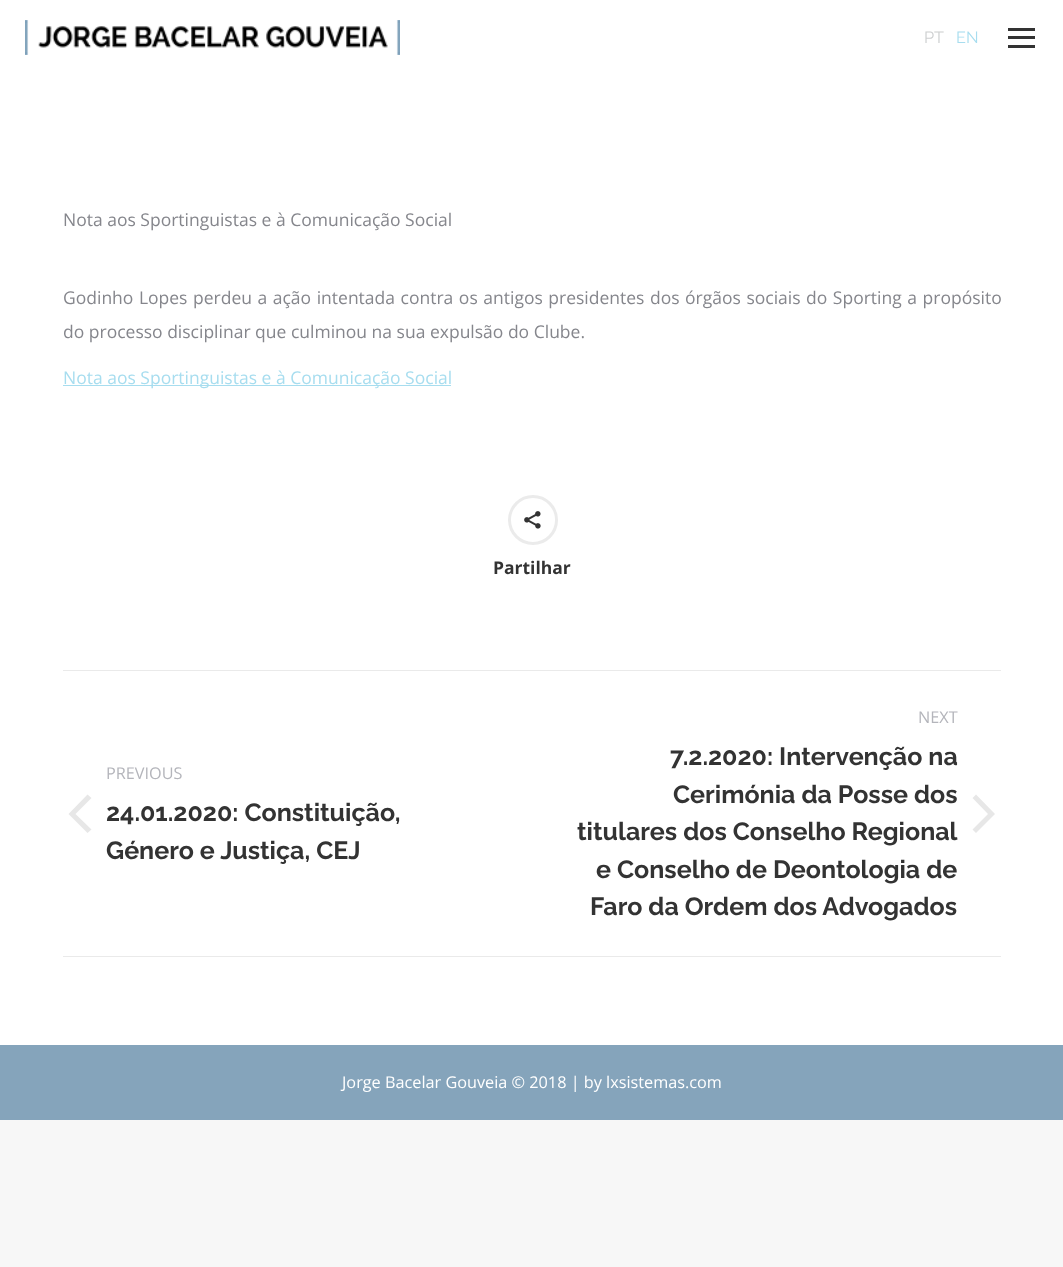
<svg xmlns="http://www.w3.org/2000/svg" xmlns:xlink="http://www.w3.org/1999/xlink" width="1063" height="1267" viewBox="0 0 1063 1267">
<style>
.cls-1{font:16.25px Raleway;fill:#cdcfd0}
.cls-2{font:16.25px Raleway;fill:#a7ddef}
.cls-3{font:17.5px Open Sans;fill:#85868c}
.cls-4{font:17.5px Open Sans;fill:#a7ddef}
.cls-5{font:bold 17.5px Open Sans;fill:#333333}
.cls-6{font:16.25px Open Sans;fill:#b4b5bb}
.cls-7{font:bold 25px Raleway;fill:#333333}
.cls-8{font:16.25px Open Sans;fill:#ffffff}
</style>
<rect width="100%" height="100%" fill="#f7f7f7"/>
<rect fill="#ffffff" x="0" y="0" width="1063" height="1045"/>
<image xlink:href="image0.png" x="25" y="20" width="375" height="35"/>
<rect fill="#333333" x="1008" y="28" width="27" height="3"/>
<rect fill="#333333" x="1008" y="36" width="27" height="3"/>
<rect fill="#333333" x="1008" y="45" width="27" height="3"/>
<rect fill="#a7ddef" x="63" y="385" width="388" height="1"/>
<circle fill="none" stroke="#ebebeb" stroke-width="3" cx="533" cy="520" r="23.5"/>
<image xlink:href="image1.png" x="524" y="511" width="17" height="18"/>
<rect fill="#eaeaea" x="63" y="670" width="938" height="1"/>
<rect fill="#eaeaea" x="63" y="956" width="938" height="1"/>
<path fill="#e7e7e7" d="M75.5 814L91.5 798L87.5 794.5L68.5 814L87.5 833L91.5 829.5Z"/>
<path fill="#e7e7e7" d="M988 814L972.5 798L976 794.5L995 814L976 833L972.5 829.5Z"/>
<rect fill="#85a4bb" x="0" y="1045" width="1063" height="75"/>
<text class="cls-1" x="924" y="43">PT</text>
<text class="cls-2" x="956" y="43">EN</text>
<text class="cls-3" x="63" y="226">Nota aos Sportinguistas e à Comunicação Social</text>
<text class="cls-3"><tspan x="63" y="304" word-spacing="1">Godinho Lopes perdeu a ação intentada contra os antigos presidentes dos órgãos sociais do Sporting a propósito</tspan><tspan x="63" y="338">do processo disciplinar que culminou na sua expulsão do Clube.</tspan></text>
<text class="cls-4" x="63" y="384">Nota aos Sportinguistas e à Comunicação Social</text>
<text class="cls-5" x="493" y="574">Partilhar</text>
<text class="cls-6" x="106" y="779">PREVIOUS</text>
<text class="cls-7"><tspan x="106" y="821">24.01.2020: Constituição,</tspan><tspan x="106" y="859">Género e Justiça, CEJ</tspan></text>
<text class="cls-6" x="918" y="723">NEXT</text>
<text class="cls-7" x="670" y="765">7.2.2020: Intervenção na</text>
<text class="cls-7" x="673" y="803">Cerimónia da Posse dos</text>
<text class="cls-7" x="577" y="840">titulares dos Conselho Regional</text>
<text class="cls-7" x="596" y="878">e Conselho de Deontologia de</text>
<text class="cls-7" x="590" y="915">Faro da Ordem dos Advogados</text>
<text class="cls-8" x="342" y="1088">Jorge Bacelar Gouveia © 2018 | by lxsistemas.com</text>
</svg>
